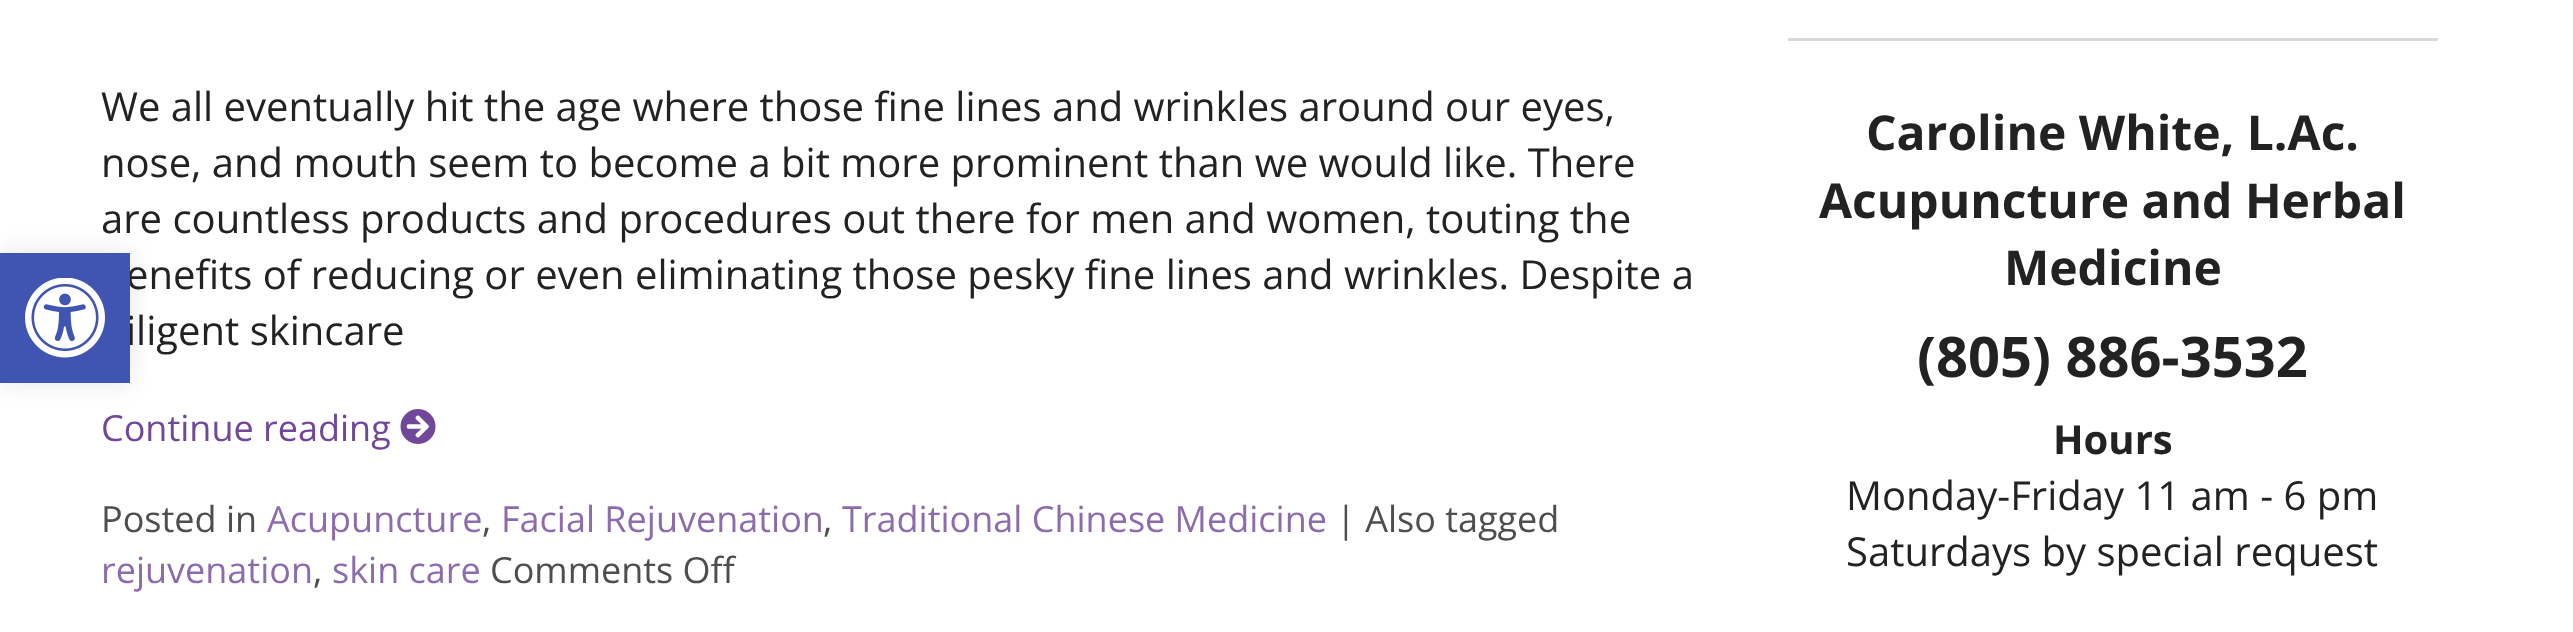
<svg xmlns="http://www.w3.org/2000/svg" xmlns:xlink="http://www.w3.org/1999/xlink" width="2573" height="632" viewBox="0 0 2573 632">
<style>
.cls-1{font:40px Open Sans;fill:#222222}
.cls-2{font:36px Open Sans;fill:#714799}
.cls-3{font:36px Open Sans;fill:#4e4e4e}
.cls-4{font:36px Open Sans;fill:#8d6cad}
.cls-5{font:bold 48px Open Sans;fill:#222222}
.cls-6{font:bold 56px Open Sans;fill:#222222}
.cls-7{font:bold 40px Open Sans;fill:#222222}
</style>
<rect width="100%" height="100%" fill="#ffffff"/>
<rect fill="#000000" fill-opacity="0.1" filter="blur(12.5px)" x="0" y="253" width="130" height="130"/>
<image xlink:href="image1.png" x="400" y="409" width="36" height="35"/>
<rect fill="#d9d9d9" x="1788" y="38" width="650" height="3"/>
<text class="cls-1"><tspan x="101" y="121">We all eventually hit the age where those fine lines and wrinkles around our eyes,</tspan><tspan x="101" y="177">nose, and mouth seem to become a bit more prominent than we would like. There</tspan><tspan x="101" y="233">are countless products and procedures out there for men and women, touting the</tspan></text>
<text class="cls-1"><tspan x="126" y="289">enefits of reducing or even eliminating those pesky fine lines and wrinkles. Despite a</tspan><tspan x="126" y="345">iligent skincare</tspan></text>
<rect fill="#4054b2" x="0" y="253" width="130" height="130"/>
<image xlink:href="image0.png" x="25" y="278" width="80" height="80"/>
<text class="cls-2" x="101" y="441">Continue reading</text>
<text class="cls-3" x="101" y="532">Posted in</text>
<text class="cls-4" x="267" y="532">Acupuncture</text>
<text class="cls-3" x="482" y="532">,</text>
<text class="cls-4" x="501" y="532">Facial Rejuvenation</text>
<text class="cls-3" x="823" y="532">,</text>
<text class="cls-4" x="842" y="532">Traditional Chinese Medicine</text>
<text class="cls-3" x="1336" y="532">| Also tagged</text>
<text class="cls-4" x="101" y="583">rejuvenation</text>
<text class="cls-3" x="313" y="583">,</text>
<text class="cls-4" x="332" y="583">skin care</text>
<text class="cls-3" x="490" y="583">Comments Off</text>
<text class="cls-5" x="1866" y="150">Caroline White, L.Ac.</text>
<text class="cls-5" x="1819" y="218">Acupuncture and Herbal</text>
<text class="cls-5" x="2004" y="285">Medicine</text>
<text class="cls-6" x="1917" y="377">(805) 886-3532</text>
<text class="cls-7" x="2053" y="454">Hours</text>
<text class="cls-1"><tspan x="1846" y="510">Monday-Friday 11 am - 6 pm</tspan><tspan x="1846" y="566">Saturdays by special request</tspan></text>
</svg>
